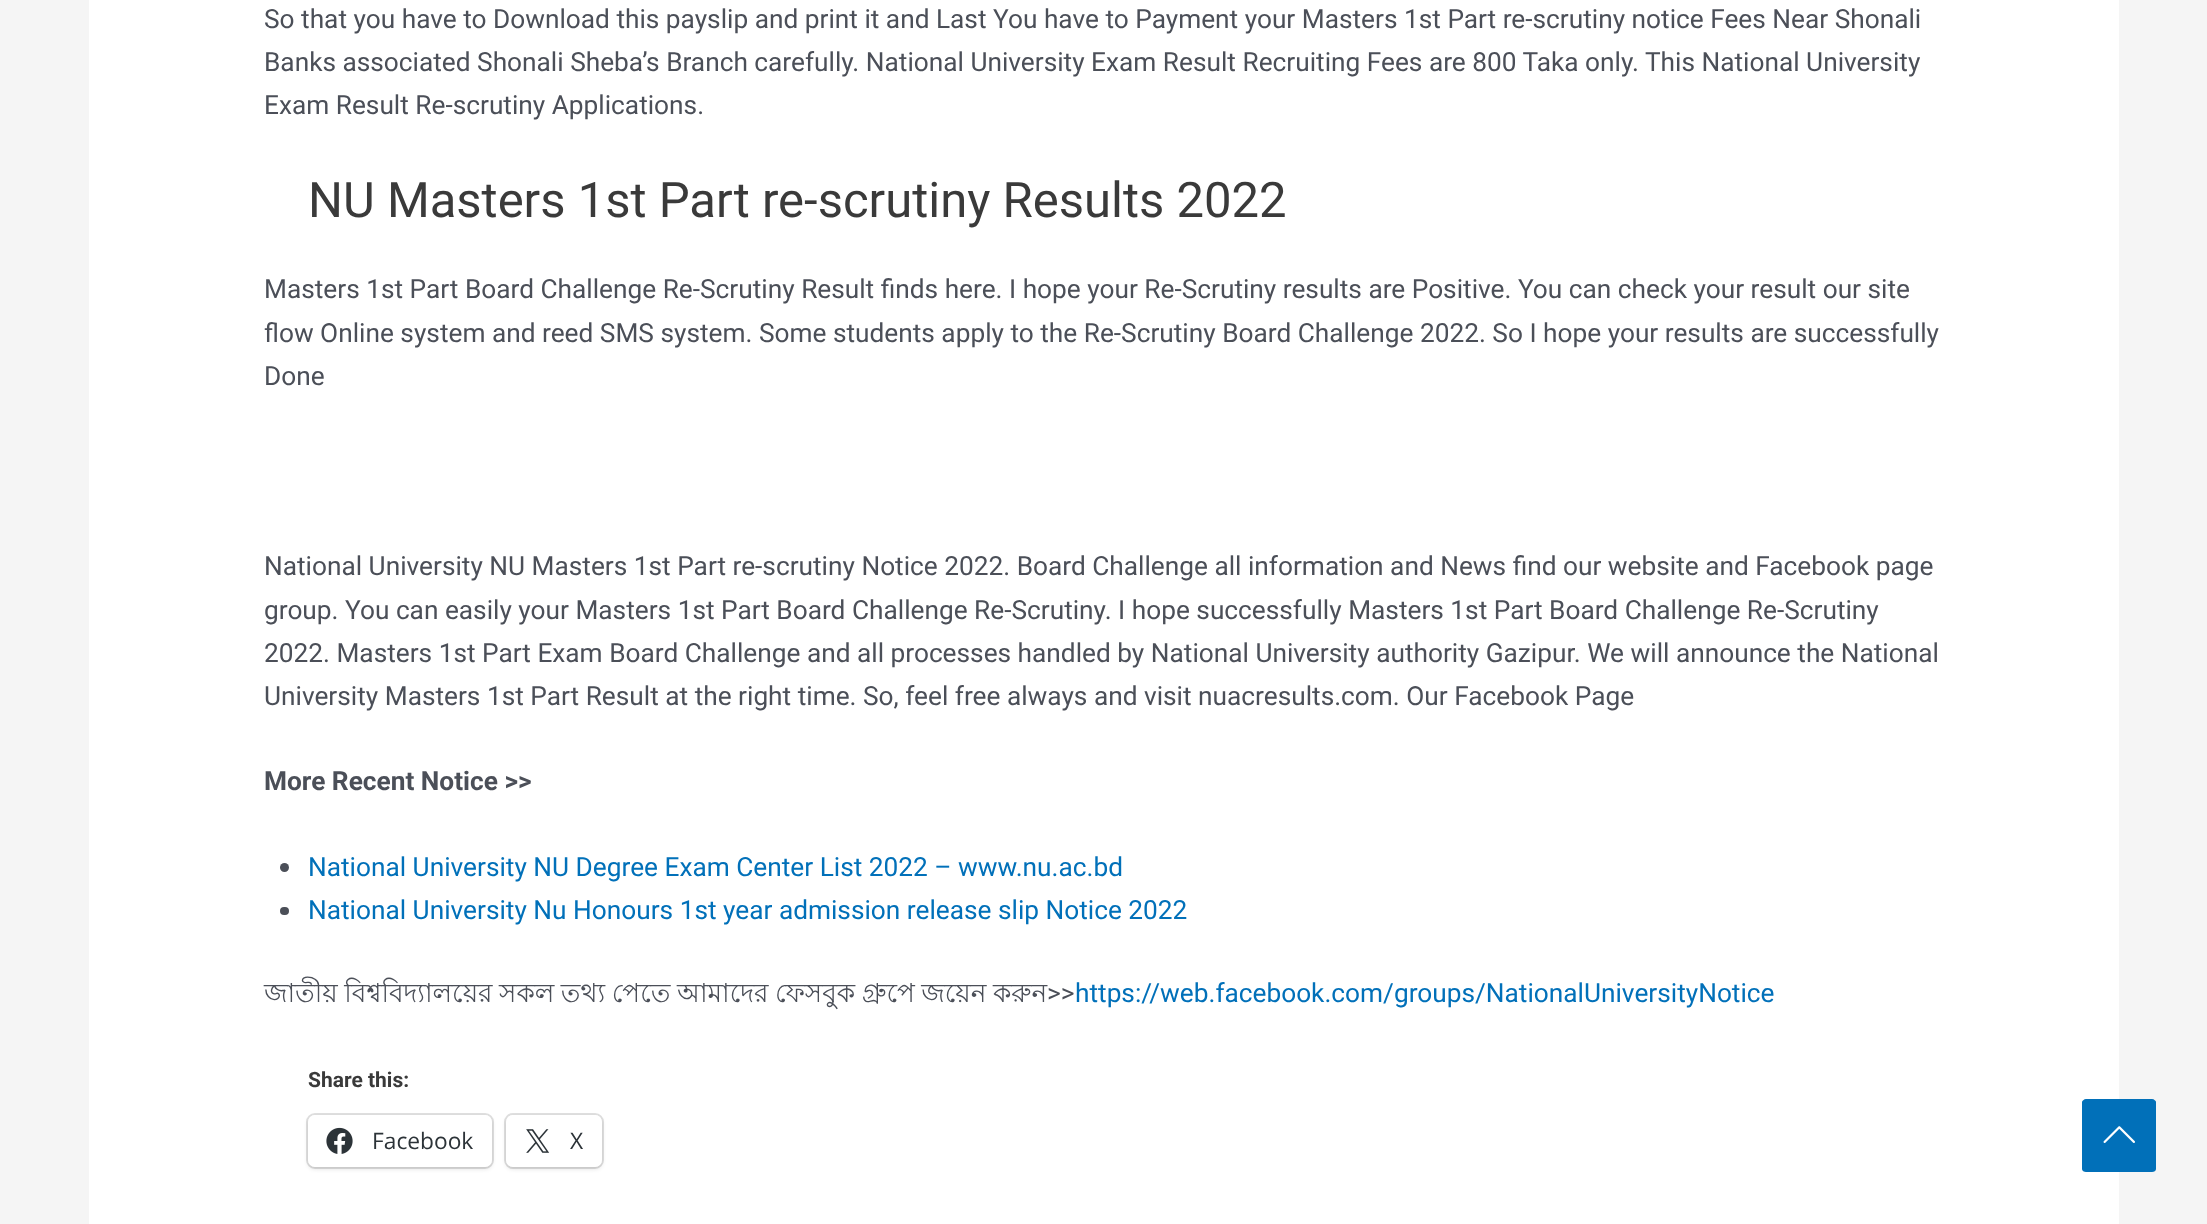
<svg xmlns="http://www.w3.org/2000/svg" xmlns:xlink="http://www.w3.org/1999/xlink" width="2207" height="1224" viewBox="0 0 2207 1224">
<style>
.cls-1{font:26.25px Roboto;fill:#4b4f58}
.cls-2{font:49px Roboto;fill:#3a3a3a}
.cls-3{font:bold 26.25px Roboto;fill:#4b4f58}
.cls-4{font:26.25px Roboto;fill:#0170b9}
.cls-5{font:26.25px Lohit Bengali;fill:#4b4f58}
.cls-6{font:bold 21px Roboto;fill:#3a3a3a}
.cls-7{font:22.75px Open Sans;fill:#2c3338}
</style>
<rect width="100%" height="100%" fill="#f5f5f5"/>
<rect fill="#ffffff" x="89" y="0" width="2030" height="1224"/>
<circle fill="#4b4f58" cx="284.5" cy="867.5" r="4.5"/>
<rect fill="#4b4f58" x="280" y="907" width="9" height="8" rx="4"/>
<rect fill="none" stroke="#e0e0e0" stroke-width="2" x="307" y="1114" width="186" height="54" rx="8"/>
<rect fill="#000000" fill-opacity="0.12" filter="blur(2px)" x="308" y="1117" width="184" height="52" rx="7"/>
<rect fill="#ffffff" x="308" y="1115" width="184" height="52" rx="7"/>
<image xlink:href="image0.png" x="326" y="1127" width="27" height="27"/>
<rect fill="none" stroke="#e0e0e0" stroke-width="2" x="505" y="1114" width="98" height="54" rx="8"/>
<rect fill="#000000" fill-opacity="0.12" filter="blur(2px)" x="506" y="1117" width="96" height="52" rx="7"/>
<rect fill="#ffffff" x="506" y="1115" width="96" height="52" rx="7"/>
<image xlink:href="image1.png" x="526" y="1129" width="24" height="24"/>
<path fill="#0170b9" d="M2152 1172H2086C2084 1172 2082 1171 2082 1169V1102C2082 1101 2084 1099 2086 1099H2152C2154 1099 2156 1101 2156 1102V1169C2156 1171 2154 1172 2152 1172Z"/>
<image xlink:href="image2.png" x="2103" y="1126" width="32" height="17"/>
<text class="cls-1"><tspan x="264" y="28">So that you have to Download this payslip and print it and Last You have to Payment your Masters 1st Part re-scrutiny notice Fees Near Shonali</tspan><tspan x="264" y="71">Banks associated Shonali Sheba’s Branch carefully. National University Exam Result Recruiting Fees are 800 Taka only. This National University</tspan><tspan x="264" y="114">Exam Result Re-scrutiny Applications.</tspan></text>
<text class="cls-2" x="308" y="217">NU Masters 1st Part re-scrutiny Results 2022</text>
<text class="cls-1"><tspan x="264" y="298">Masters 1st Part Board Challenge Re-Scrutiny Result finds here. I hope your Re-Scrutiny results are Positive. You can check your result our site</tspan><tspan x="264" y="342">flow Online system and reed SMS system. Some students apply to the Re-Scrutiny Board Challenge 2022. So I hope your results are successfully</tspan><tspan x="264" y="385">Done</tspan></text>
<text class="cls-1"><tspan x="264" y="575">National University NU Masters 1st Part re-scrutiny Notice 2022. Board Challenge all information and News find our website and Facebook page</tspan><tspan x="264" y="619">group. You can easily your Masters 1st Part Board Challenge Re-Scrutiny. I hope successfully Masters 1st Part Board Challenge Re-Scrutiny</tspan><tspan x="264" y="662">2022. Masters 1st Part Exam Board Challenge and all processes handled by National University authority Gazipur. We will announce the National</tspan><tspan x="264" y="705">University Masters 1st Part Result at the right time. So, feel free always and visit nuacresults.com. Our Facebook Page</tspan></text>
<text class="cls-3" x="264" y="790">More Recent Notice &gt;&gt;</text>
<text class="cls-4"><tspan x="308" y="876">National University NU Degree Exam Center List 2022 – www.nu.ac.bd</tspan><tspan x="308" y="919">National University Nu Honours 1st year admission release slip Notice 2022</tspan></text>
<text class="cls-5" x="264" y="1002" word-spacing="-0.75">জাতীয় বিশ্ববিদ্যালয়ের সকল তথ্য পেতে আমাদের ফেসবুক গ্রুপে জয়েন করুন</text>
<text class="cls-1" x="1047" y="1002">&gt;&gt;</text>
<text class="cls-4" x="1075" y="1002">https://web.facebook.com/groups/NationalUniversityNotice</text>
<text class="cls-6" x="308" y="1087">Share this:</text>
<text class="cls-7" x="372" y="1149">Facebook</text>
<text class="cls-7" x="570" y="1149">X</text>
</svg>
